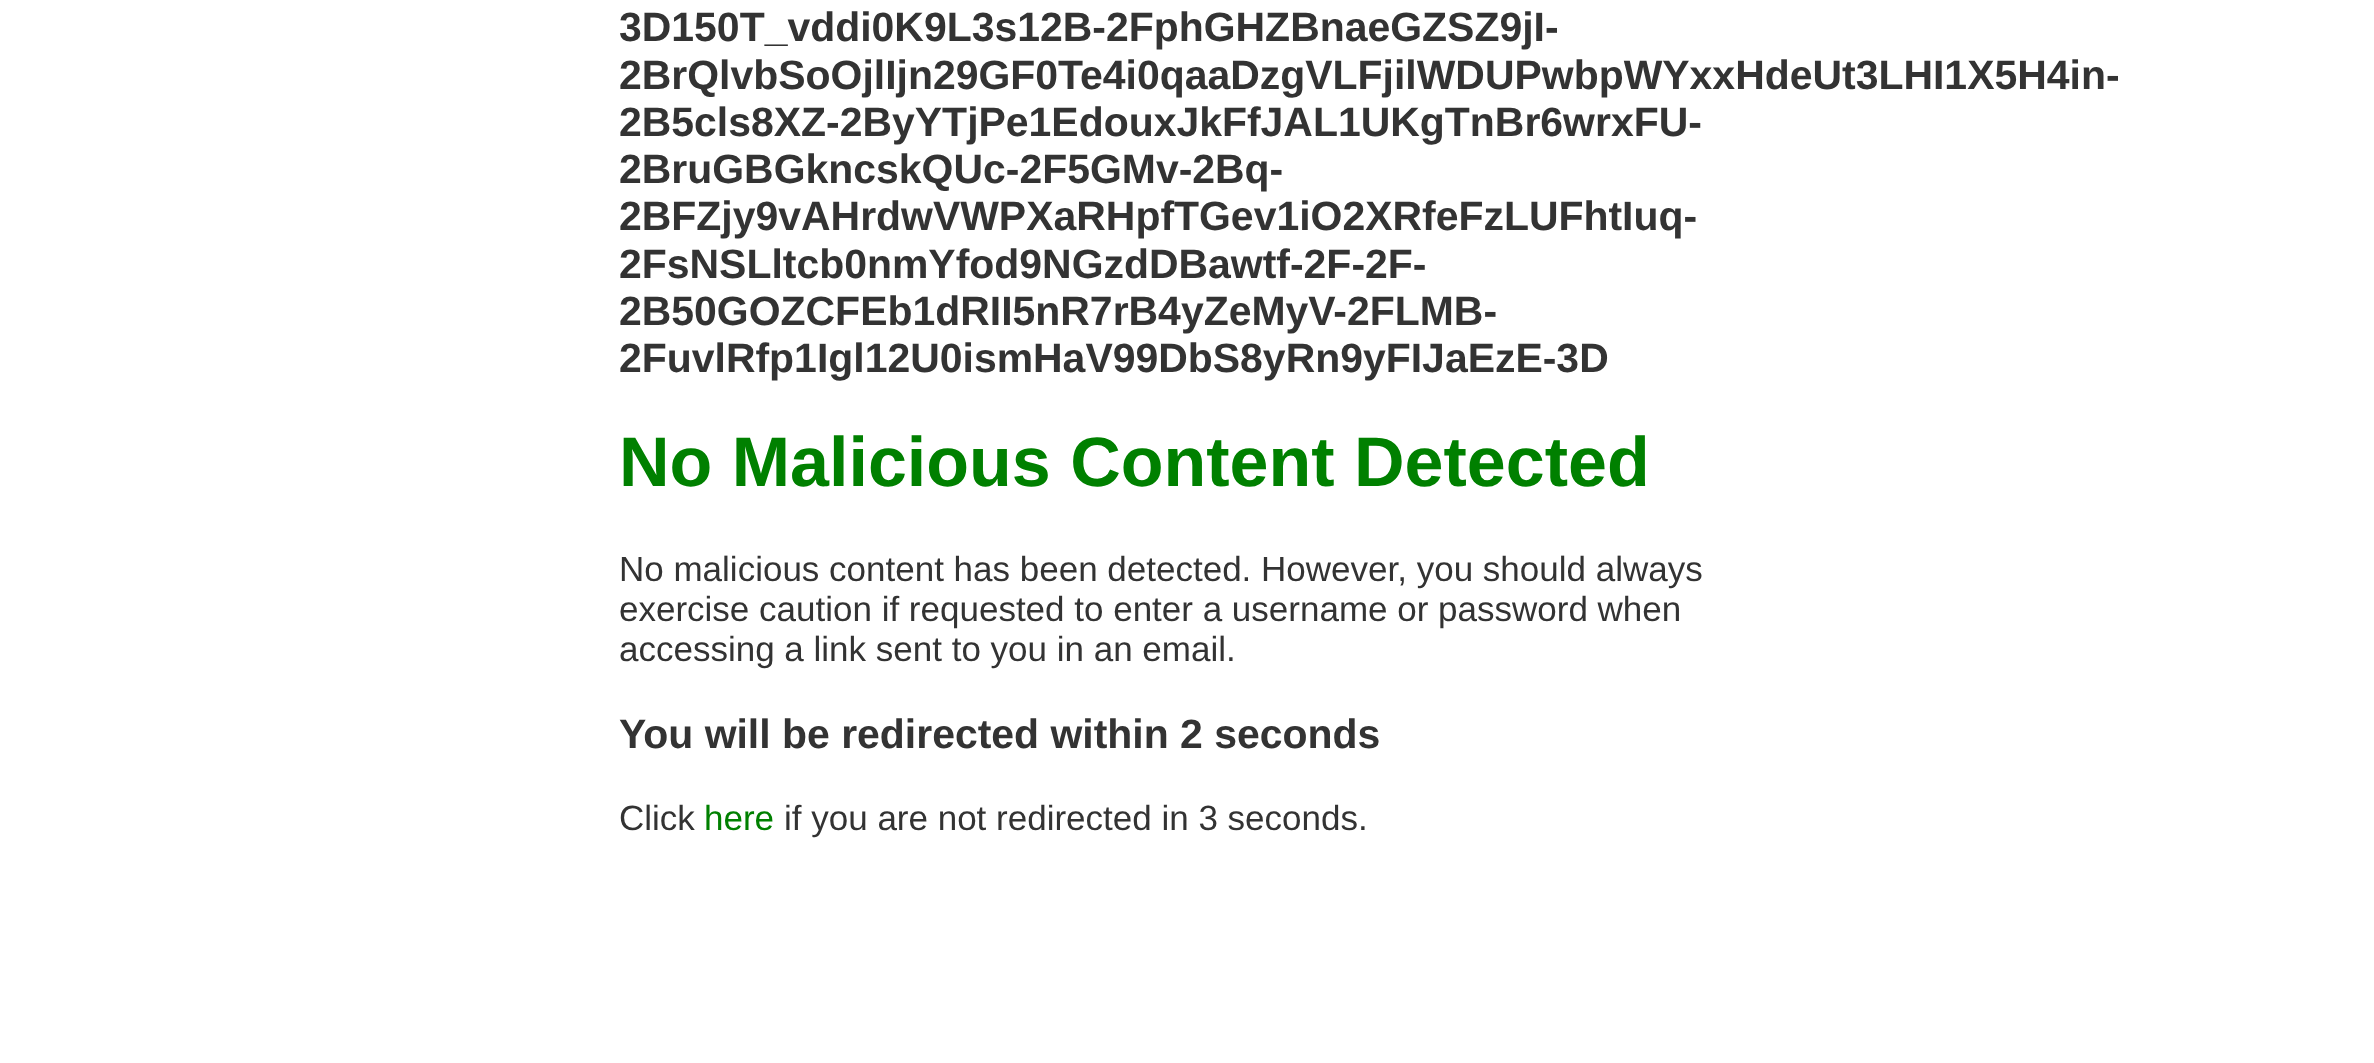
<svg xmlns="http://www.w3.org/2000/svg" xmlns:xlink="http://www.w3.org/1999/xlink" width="2374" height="1063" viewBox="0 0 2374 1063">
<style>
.cls-1{font:bold 40.95px Liberation Sans;fill:#333333}
.cls-2{font:bold 70px Liberation Sans;fill:#008000}
.cls-3{font:35px Liberation Sans;fill:#333333}
.cls-4{font:35px Liberation Sans;fill:#008000}
</style>
<rect width="100%" height="100%" fill="#ffffff"/>
<text class="cls-1"><tspan x="619" y="41">3D150T_vddi0K9L3s12B-2FphGHZBnaeGZSZ9jI-</tspan><tspan x="619" y="89">2BrQlvbSoOjlIjn29GF0Te4i0qaaDzgVLFjilWDUPwbpWYxxHdeUt3LHI1X5H4in-</tspan><tspan x="619" y="136">2B5cls8XZ-2ByYTjPe1EdouxJkFfJAL1UKgTnBr6wrxFU-</tspan><tspan x="619" y="183">2BruGBGkncskQUc-2F5GMv-2Bq-</tspan><tspan x="619" y="230">2BFZjy9vAHrdwVWPXaRHpfTGev1iO2XRfeFzLUFhtIuq-</tspan><tspan x="619" y="278">2FsNSLltcb0nmYfod9NGzdDBawtf-2F-2F-</tspan><tspan x="619" y="325">2B50GOZCFEb1dRII5nR7rB4yZeMyV-2FLMB-</tspan><tspan x="619" y="372">2FuvlRfp1Igl12U0ismHaV99DbS8yRn9yFIJaEzE-3D</tspan></text>
<text class="cls-2" x="619" y="486">No Malicious Content Detected</text>
<text class="cls-3"><tspan x="619" y="581">No malicious content has been detected. However, you should always</tspan><tspan x="619" y="621">exercise caution if requested to enter a username or password when</tspan><tspan x="619" y="661">accessing a link sent to you in an email.</tspan></text>
<text class="cls-1" x="619" y="748">You will be redirected within 2 seconds</text>
<text class="cls-3" x="619" y="830">Click</text>
<text class="cls-4" x="704" y="830">here</text>
<text class="cls-3" x="784" y="830">if you are not redirected in 3 seconds.</text>
</svg>
